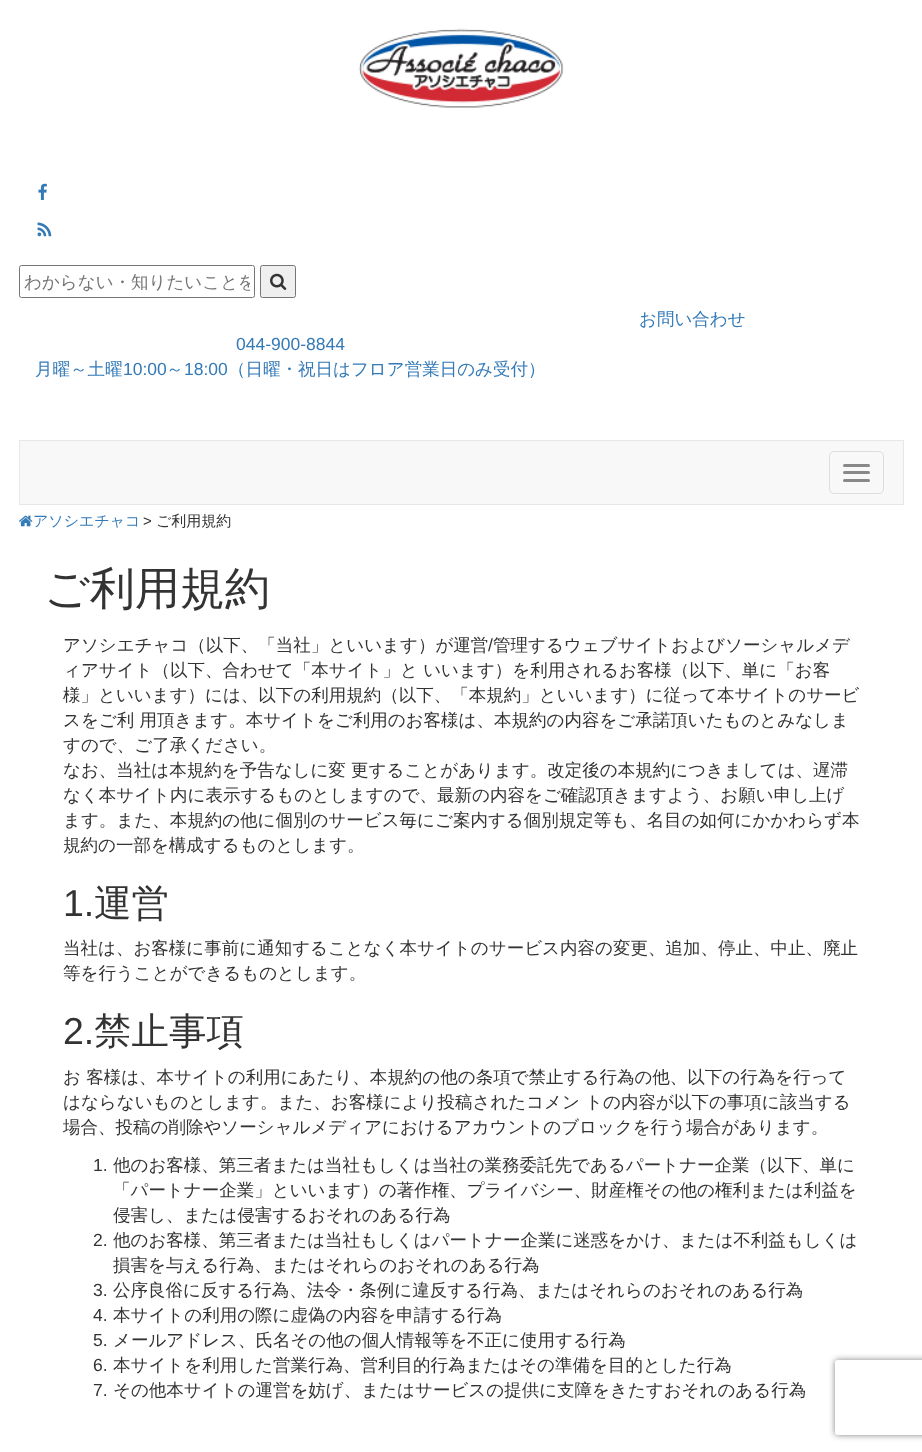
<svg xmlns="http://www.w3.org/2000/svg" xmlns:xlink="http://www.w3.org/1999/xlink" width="922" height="1452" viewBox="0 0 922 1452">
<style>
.cls-1{font:500 17.5px WenQuanYi Zen Hei;fill:#757575}
.cls-2{font:500 17.5px WenQuanYi Zen Hei;fill:#337ab7}
.cls-3{font:17.5px Liberation Sans;fill:#337ab7}
.cls-4{font:500 15px WenQuanYi Zen Hei;fill:#337ab7}
.cls-5{font:15px Liberation Sans;fill:#333333}
.cls-6{font:500 15px WenQuanYi Zen Hei;fill:#333333}
.cls-7{font:500 45px WenQuanYi Zen Hei;fill:#333333}
.cls-8{font:500 17.5px WenQuanYi Zen Hei;fill:#333333}
.cls-9{font:17.5px Liberation Sans;fill:#333333}
.cls-10{font:37.5px Liberation Sans;fill:#333333}
.cls-11{font:500 37.5px WenQuanYi Zen Hei;fill:#333333}
</style>
<defs>
<clipPath id="clip1"><path d="M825 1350H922V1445H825ZM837.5 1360H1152.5C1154 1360 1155 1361 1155 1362.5V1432.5C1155 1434 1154 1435 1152.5 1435H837.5C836 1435 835 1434 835 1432.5V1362.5C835 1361 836 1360 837.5 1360Z" clip-rule="evenodd"/></clipPath>
<clipPath id="clip2"><rect x="24" y="271" width="226" height="23"/></clipPath>
</defs>
<rect width="100%" height="100%" fill="#ffffff"/>
<image xlink:href="image0.png" x="358" y="28" width="206" height="80"/>
<image xlink:href="image1.png" x="38" y="183" width="9" height="17"/>
<image xlink:href="image2.png" x="37" y="222" width="15" height="15"/>
<rect fill="none" stroke="#767676" x="19.5" y="265.5" width="235" height="32" rx="2"/>
<rect fill="#efefef" stroke="#767676" x="260.5" y="265.5" width="35" height="32" rx="2"/>
<image xlink:href="image3.png" x="270" y="273" width="17" height="17"/>
<rect fill="#f8f8f8" stroke="#e7e7e7" x="19.5" y="440.5" width="884" height="64"/>
<rect fill="none" stroke="#dddddd" x="829.5" y="451.5" width="54" height="42" rx="4.5"/>
<rect fill="#888888" x="843" y="464" width="27" height="3" rx="1.5"/>
<rect fill="#888888" x="843" y="471" width="27" height="3" rx="1.5"/>
<rect fill="#888888" x="843" y="479" width="27" height="3" rx="1.5"/>
<image xlink:href="image4.png" x="19" y="515" width="14" height="12"/>
<g clip-path="url(#clip1)">
<rect fill="#808080" filter="blur(3px)" x="835" y="1360" width="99" height="75" rx="2.5"/>
</g>
<g clip-path="url(#clip2)">
<text class="cls-1" x="24" y="288">わからない・知りたいことを</text>
</g>
<text class="cls-2" x="639" y="325">お問い合わせ</text>
<text class="cls-3" x="236" y="350">044-900-8844</text>
<text class="cls-2" x="35" y="375">月曜～土曜</text>
<text class="cls-3" x="123" y="375">10:00</text>
<text class="cls-2" x="166" y="375">～</text>
<text class="cls-3" x="184" y="375">18:00</text>
<text class="cls-2" x="228" y="375">（日曜・祝日はフロア営業日のみ受付）</text>
<text class="cls-4" x="33" y="526">アソシエチャコ</text>
<text class="cls-5" x="143" y="526">&gt;</text>
<text class="cls-6" x="156" y="526">ご利用規約</text>
<text class="cls-7" x="44" y="604">ご利用規約</text>
<text class="cls-8" x="63" y="651">アソシエチャコ（以下、「当社」といいます）が運営</text>
<text class="cls-9" x="488" y="651">/</text>
<text class="cls-8" x="493" y="651">管理するウェブサイトおよびソーシャルメデ</text>
<text class="cls-8"><tspan x="63" y="676">ィアサイト（以下、合わせて「本サイト」と いいます）を利用されるお客様（以下、単に「お客</tspan><tspan x="63" y="701">様」といいます）には、以下の利用規約（以下、「本規約」といいます）に従って本サイトのサービ</tspan><tspan x="63" y="726">スをご利 用頂きます。本サイトをご利用のお客様は、本規約の内容をご承諾頂いたものとみなしま</tspan><tspan x="63" y="751">すので、ご了承ください。</tspan><tspan x="63" y="776">なお、当社は本規約を予告なしに変 更することがあります。改定後の本規約につきましては、遅滞</tspan><tspan x="63" y="801">なく本サイト内に表示するものとしますので、最新の内容をご確認頂きますよう、お願い申し上げ</tspan><tspan x="63" y="826">ます。また、本規約の他に個別のサービス毎にご案内する個別規定等も、名目の如何にかかわらず本</tspan><tspan x="63" y="851">規約の一部を構成するものとします。</tspan></text>
<text class="cls-10" x="63" y="916">1.</text>
<text class="cls-11" x="94" y="916">運営</text>
<text class="cls-8"><tspan x="63" y="954">当社は、お客様に事前に通知することなく本サイトのサービス内容の変更、追加、停止、中止、廃止</tspan><tspan x="63" y="979">等を行うことができるものとします。</tspan></text>
<text class="cls-10" x="63" y="1044">2.</text>
<text class="cls-11" x="94" y="1044">禁止事項</text>
<text class="cls-8"><tspan x="63" y="1083">お 客様は、本サイトの利用にあたり、本規約の他の条項で禁止する行為の他、以下の行為を行って</tspan><tspan x="63" y="1108">はならないものとします。また、お客様により投稿されたコメン トの内容が以下の事項に該当する</tspan><tspan x="63" y="1133">場合、投稿の削除やソーシャルメディアにおけるアカウントのブロックを行う場合があります。</tspan></text>
<text class="cls-9" x="93" y="1171">1.</text>
<text class="cls-8"><tspan x="113" y="1171">他のお客様、第三者または当社もしくは当社の業務委託先であるパートナー企業（以下、単に</tspan><tspan x="113" y="1196">「パートナー企業」といいます）の著作権、プライバシー、財産権その他の権利または利益を</tspan><tspan x="113" y="1221">侵害し、または侵害するおそれのある行為</tspan></text>
<text class="cls-9" x="93" y="1246">2.</text>
<text class="cls-8"><tspan x="113" y="1246">他のお客様、第三者または当社もしくはパートナー企業に迷惑をかけ、または不利益もしくは</tspan><tspan x="113" y="1271">損害を与える行為、またはそれらのおそれのある行為</tspan></text>
<text class="cls-9" x="93" y="1296">3.</text>
<text class="cls-8" x="113" y="1296">公序良俗に反する行為、法令・条例に違反する行為、またはそれらのおそれのある行為</text>
<text class="cls-9" x="93" y="1321">4.</text>
<text class="cls-8" x="113" y="1321">本サイトの利用の際に虚偽の内容を申請する行為</text>
<text class="cls-9" x="93" y="1346">5.</text>
<text class="cls-8" x="113" y="1346">メールアドレス、氏名その他の個人情報等を不正に使用する行為</text>
<text class="cls-9" x="93" y="1371">6.</text>
<text class="cls-8" x="113" y="1371">本サイトを利用した営業行為、営利目的行為またはその準備を目的とした行為</text>
<text class="cls-9" x="93" y="1396">7.</text>
<text class="cls-8" x="113" y="1396">その他本サイトの運営を妨げ、またはサービスの提供に支障をきたすおそれのある行為</text>
</svg>
